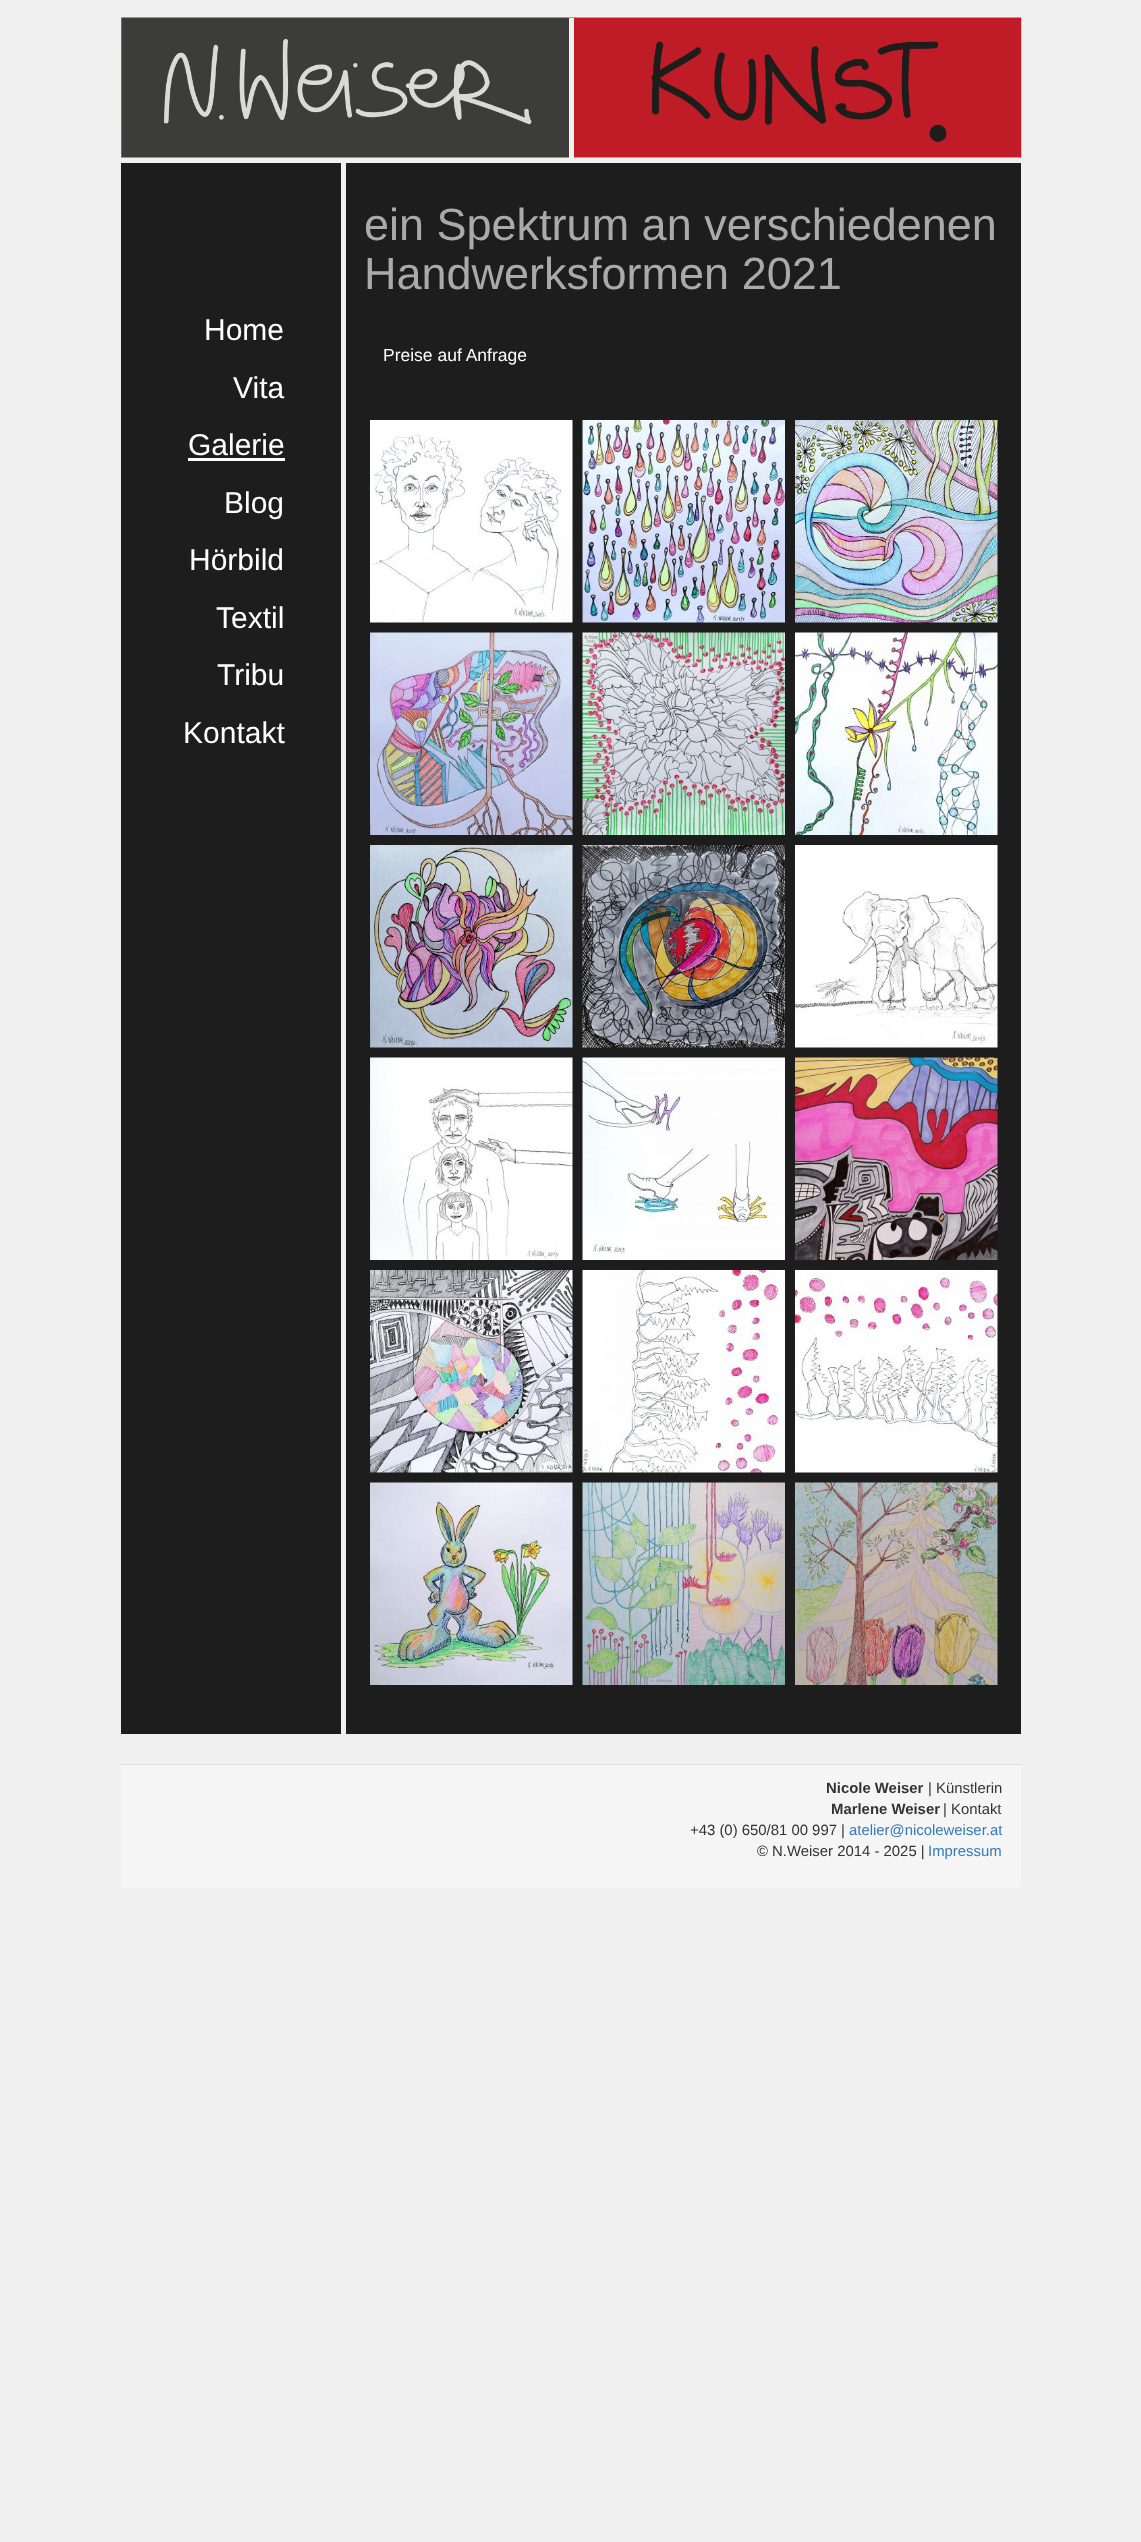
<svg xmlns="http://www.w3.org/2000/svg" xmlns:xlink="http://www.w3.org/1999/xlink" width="1141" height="2542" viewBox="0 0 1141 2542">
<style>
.cls-1{font:45px Liberation Sans;fill:#aaaaaa}
.cls-2{font:17.5px Liberation Sans;fill:#ffffff}
.cls-3{font:30px Liberation Sans;fill:#ffffff}
.cls-4{font:bold 14.9px Liberation Sans;fill:#333333}
.cls-5{font:14.9px Liberation Sans;fill:#333333}
.cls-6{font:14.9px Liberation Sans;fill:#337ab7}
</style>
<rect width="100%" height="100%" fill="#f0f0f0"/>
<rect fill="#f5f5f5" x="121" y="18" width="900" height="140"/>
<image xlink:href="image0.png" x="121" y="17" width="451" height="141"/>
<rect fill="#f0f0f0" x="569" y="18" width="2" height="140"/>
<image xlink:href="image1.png" x="571" y="17" width="451" height="141"/>
<rect fill="#f0f0f0" x="571" y="18" width="3" height="140"/>
<rect fill="#1d1d1d" x="121" y="163" width="900" height="1571"/>
<image xlink:href="image2.png" x="370" y="420" width="203" height="203"/>
<image xlink:href="image3.png" x="582" y="420" width="203" height="203"/>
<image xlink:href="image4.png" x="795" y="420" width="203" height="203"/>
<image xlink:href="image5.png" x="370" y="632" width="203" height="203"/>
<image xlink:href="image6.png" x="582" y="632" width="203" height="203"/>
<image xlink:href="image7.png" x="795" y="632" width="203" height="203"/>
<image xlink:href="image8.png" x="370" y="845" width="203" height="203"/>
<image xlink:href="image9.png" x="582" y="845" width="203" height="203"/>
<image xlink:href="image10.png" x="795" y="845" width="203" height="203"/>
<image xlink:href="image11.png" x="370" y="1057" width="203" height="203"/>
<image xlink:href="image12.png" x="582" y="1057" width="203" height="203"/>
<image xlink:href="image13.png" x="795" y="1057" width="203" height="203"/>
<image xlink:href="image14.png" x="370" y="1270" width="203" height="203"/>
<image xlink:href="image15.png" x="582" y="1270" width="203" height="203"/>
<image xlink:href="image16.png" x="795" y="1270" width="203" height="203"/>
<image xlink:href="image17.png" x="370" y="1482" width="203" height="203"/>
<image xlink:href="image18.png" x="582" y="1482" width="203" height="203"/>
<image xlink:href="image19.png" x="795" y="1482" width="203" height="203"/>
<rect fill="#f0f0f0" x="341" y="163" width="5" height="1571"/>
<rect fill="#ffffff" x="188" y="458" width="97" height="3"/>
<path fill="#f5f5f5" d="M121 1764H1021V1884C1021 1886 1019 1888 1017 1888H125C123 1888 121 1886 121 1884Z"/>
<rect fill="#dddddd" x="121" y="1764" width="900" height="1"/>
<text class="cls-1"><tspan x="364" y="240">ein Spektrum an verschiedenen</tspan><tspan x="364" y="289">Handwerksformen 2021</tspan></text>
<text class="cls-2" x="383" y="361">Preise auf Anfrage</text>
<text class="cls-3" x="204" y="340">Home</text>
<text class="cls-3" x="233" y="398">Vita</text>
<text class="cls-3" x="188" y="455">Galerie</text>
<text class="cls-3" x="224" y="513">Blog</text>
<text class="cls-3" x="189" y="570">Hörbild</text>
<text class="cls-3" x="216" y="628">Textil</text>
<text class="cls-3" x="217" y="685">Tribu</text>
<text class="cls-3" x="183" y="743">Kontakt</text>
<text class="cls-4" x="826" y="1793">Nicole Weiser</text>
<text class="cls-5" x="928" y="1793">| Künstlerin</text>
<text class="cls-4" x="831" y="1814">Marlene Weiser</text>
<text class="cls-5" x="943" y="1814">| Kontakt</text>
<text class="cls-5" x="690" y="1835">+43 (0) 650/81 00 997 |</text>
<text class="cls-6" x="849" y="1835">atelier@nicoleweiser.at</text>
<text class="cls-5" x="757" y="1856">© N.Weiser 2014 - 2025 |</text>
<text class="cls-6" x="928" y="1856">Impressum</text>
</svg>
